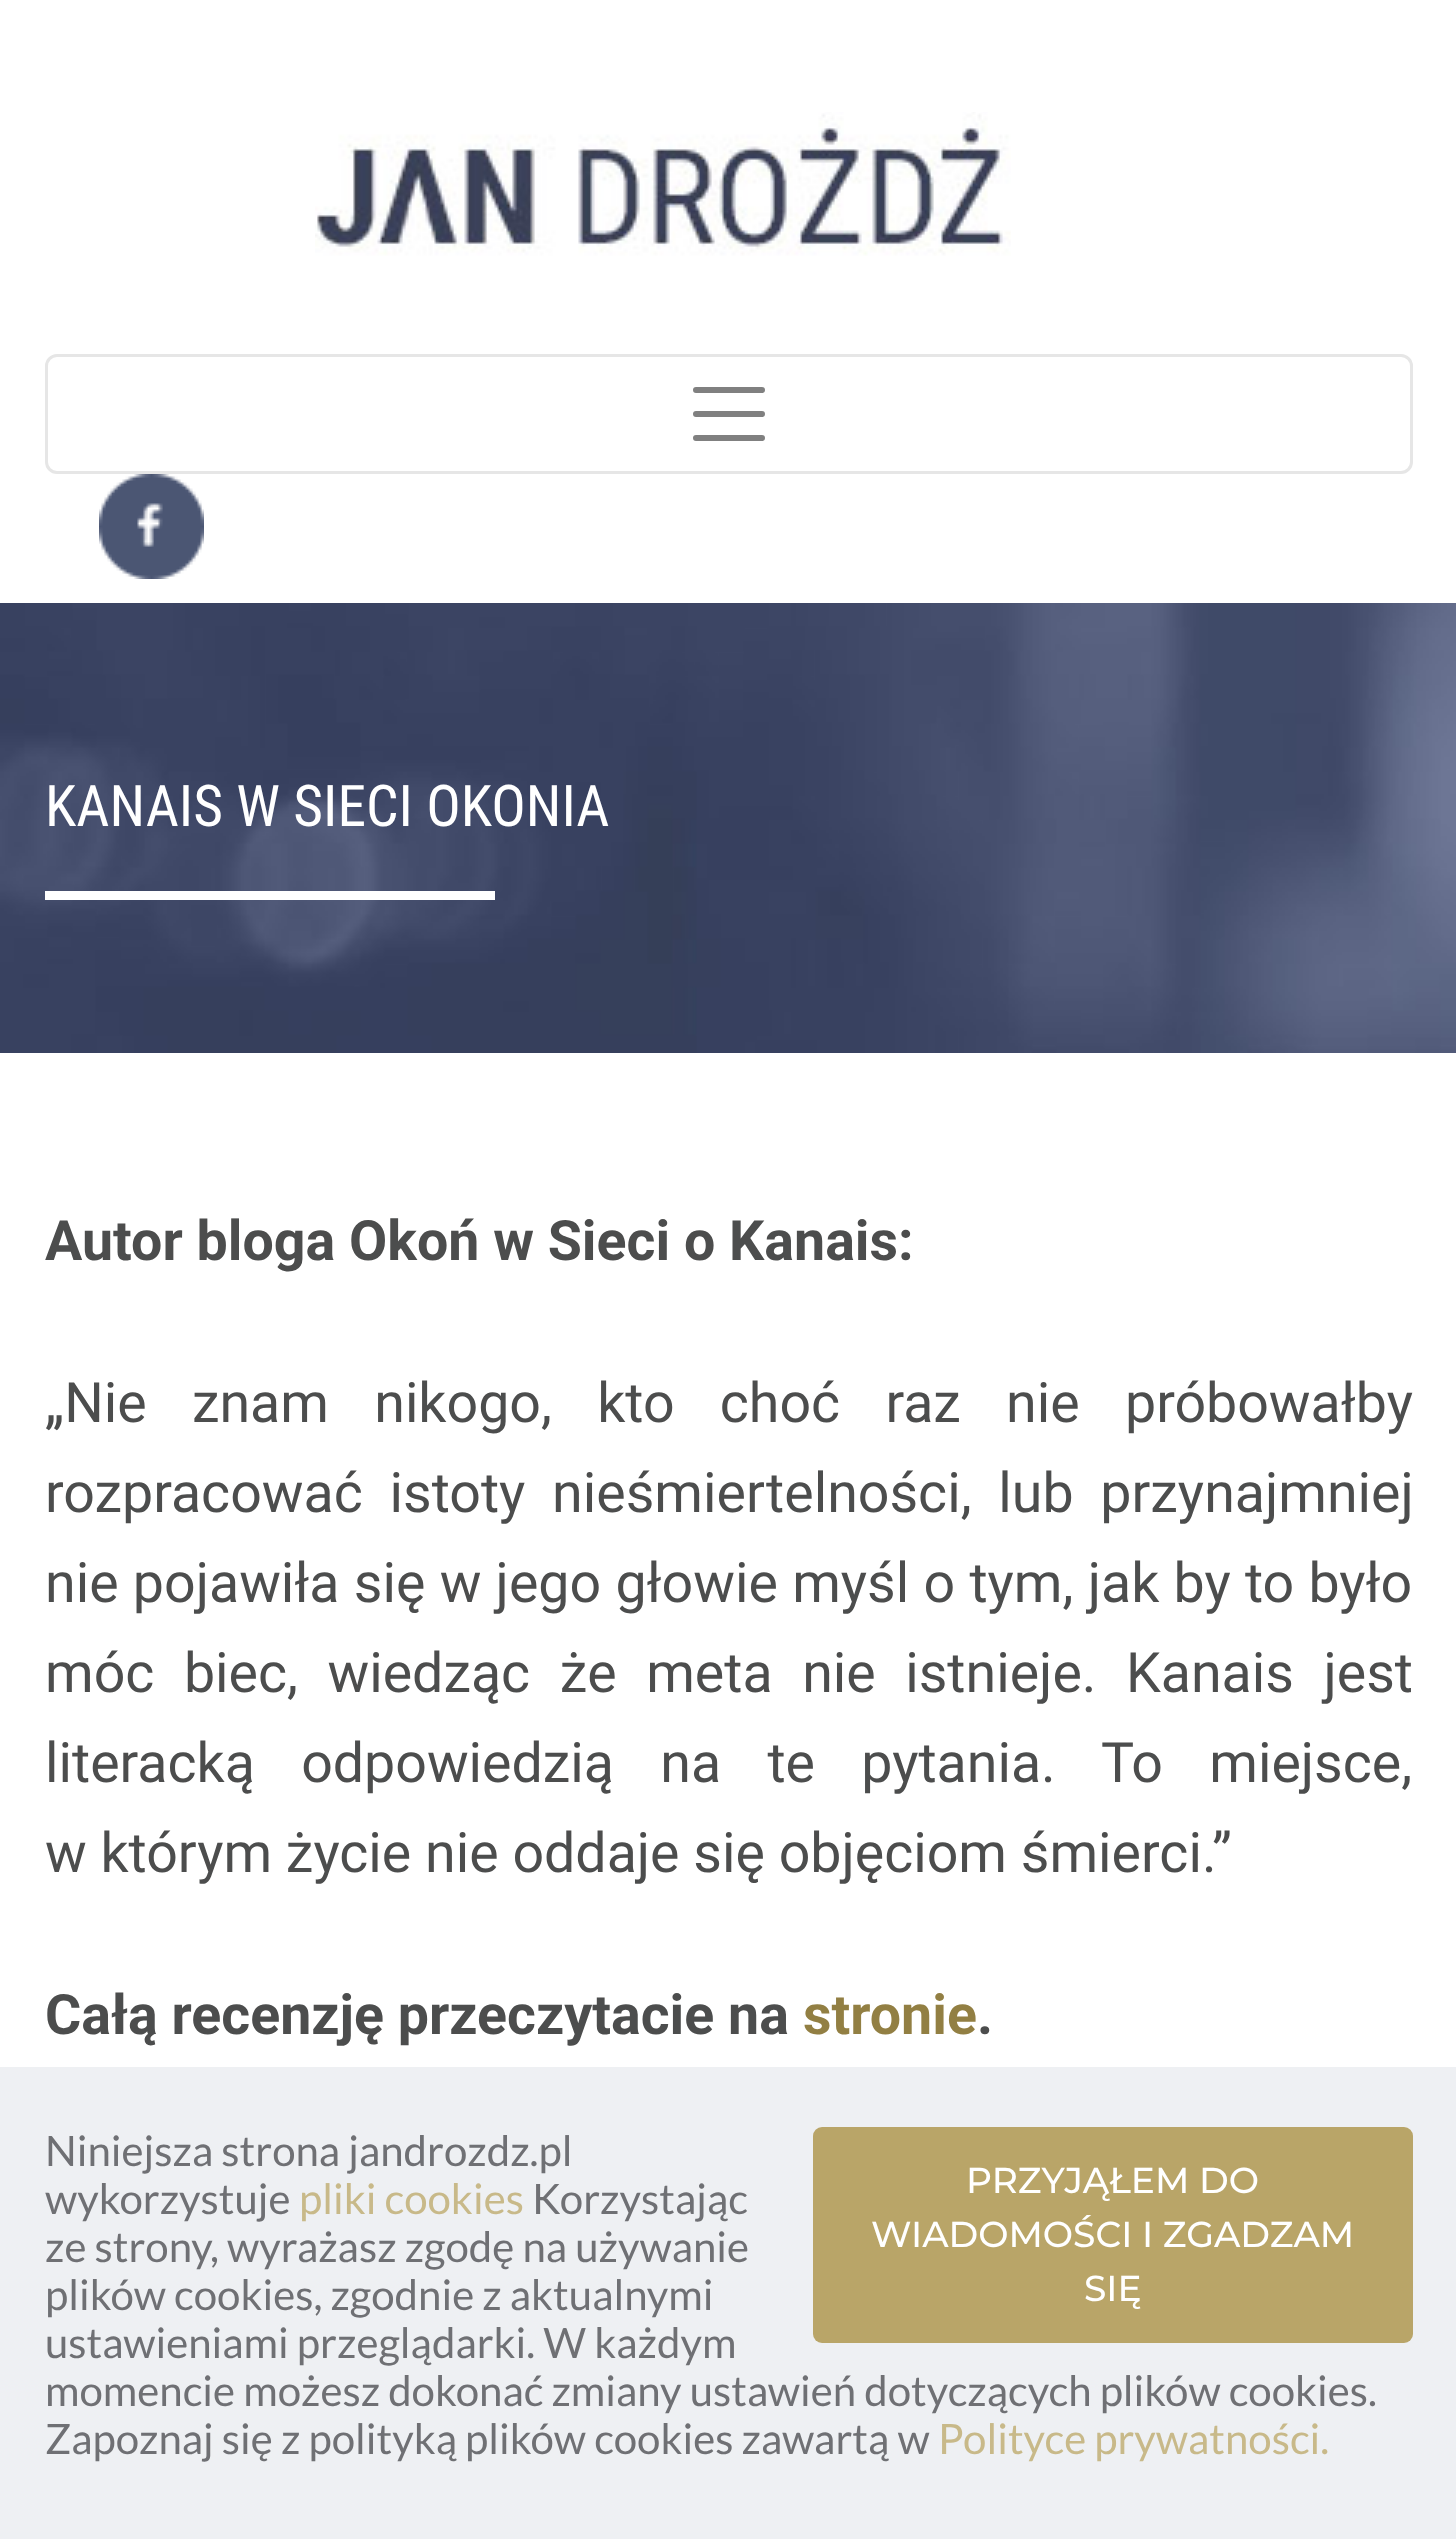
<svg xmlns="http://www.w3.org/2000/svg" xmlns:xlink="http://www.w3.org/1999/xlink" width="1456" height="2539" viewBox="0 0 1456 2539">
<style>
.cls-1{font:57.5px Roboto Condensed;fill:#ffffff}
.cls-2{font:bold 55.5px Roboto;fill:#4c4d4d}
.cls-3{font:55.5px Roboto;fill:#4c4d4d}
.cls-4{font:bold 55.5px Roboto;fill:#927f43}
.cls-5{font:42px Lato;fill:#6f7074}
.cls-6{font:42px Lato;fill:#c8b989}
.cls-7{font:500 36px Montserrat;fill:#ffffff}
</style>
<rect width="100%" height="100%" fill="#ffffff"/>
<image xlink:href="image0.png" x="315" y="112" width="696" height="144"/>
<rect fill="none" stroke="#e6e6e6" stroke-width="3" x="46.5" y="355.5" width="1365" height="117" rx="10.5"/>
<path fill="none" stroke="#808080" stroke-width="6" stroke-linecap="round" d="M696 390H762M696 414H762M696 438H762"/>
<image xlink:href="image1.png" x="99" y="474" width="105" height="105"/>
<image xlink:href="image2.png" x="0" y="603" width="1456" height="450"/>
<rect fill="#ffffff" x="45" y="891" width="450" height="9"/>
<rect fill="#eef0f3" x="0" y="2067" width="1456" height="472"/>
<rect fill="#b9a568" x="813" y="2127" width="600" height="216" rx="9"/>
<text class="cls-1" x="45" y="826">KANAIS W SIECI OKONIA</text>
<text class="cls-2" x="45" y="1260">Autor bloga Okoń w Sieci o Kanais:</text>
<text class="cls-3"><tspan x="45" y="1422" word-spacing="31.5">„Nie znam nikogo, kto choć raz nie próbowałby</tspan><tspan x="45" y="1512" word-spacing="13">rozpracować istoty nieśmiertelności, lub przynajmniej</tspan><tspan x="45" y="1602" word-spacing="0.5">nie pojawiła się w jego głowie myśl o tym, jak by to było</tspan><tspan x="45" y="1692" word-spacing="15.75">móc biec, wiedząc że meta nie istnieje. Kanais jest</tspan><tspan x="45" y="1782" word-spacing="32.5">literacką odpowiedzią na te pytania. To miejsce,</tspan><tspan x="45" y="1872">w którym życie nie oddaje się objęciom śmierci.”</tspan></text>
<text class="cls-2" x="45" y="2034">Całą recenzję przeczytacie na</text>
<text class="cls-4" x="803" y="2034">stronie</text>
<text class="cls-2" x="977" y="2034">.</text>
<text class="cls-5"><tspan x="45" y="2166">Niniejsza strona jandrozdz.pl</tspan><tspan x="45" y="2214">wykorzystuje</tspan></text>
<text class="cls-6" x="299" y="2214">pliki cookies</text>
<text class="cls-5" x="532" y="2214">Korzystając</text>
<text class="cls-7" x="966" y="2193">PRZYJĄŁEM DO</text>
<text class="cls-7" x="871" y="2247">WIADOMOŚCI I ZGADZAM</text>
<text class="cls-7" x="1084" y="2301">SIĘ</text>
<text class="cls-5"><tspan x="45" y="2262">ze strony, wyrażasz zgodę na używanie</tspan><tspan x="45" y="2310">plików cookies, zgodnie z aktualnymi</tspan><tspan x="45" y="2358">ustawieniami przeglądarki. W każdym</tspan><tspan x="45" y="2406">momencie możesz dokonać zmiany ustawień dotyczących plików cookies.</tspan><tspan x="45" y="2454">Zapoznaj się z polityką plików cookies zawartą w</tspan></text>
<text class="cls-6" x="938" y="2454">Polityce prywatności.</text>
</svg>
